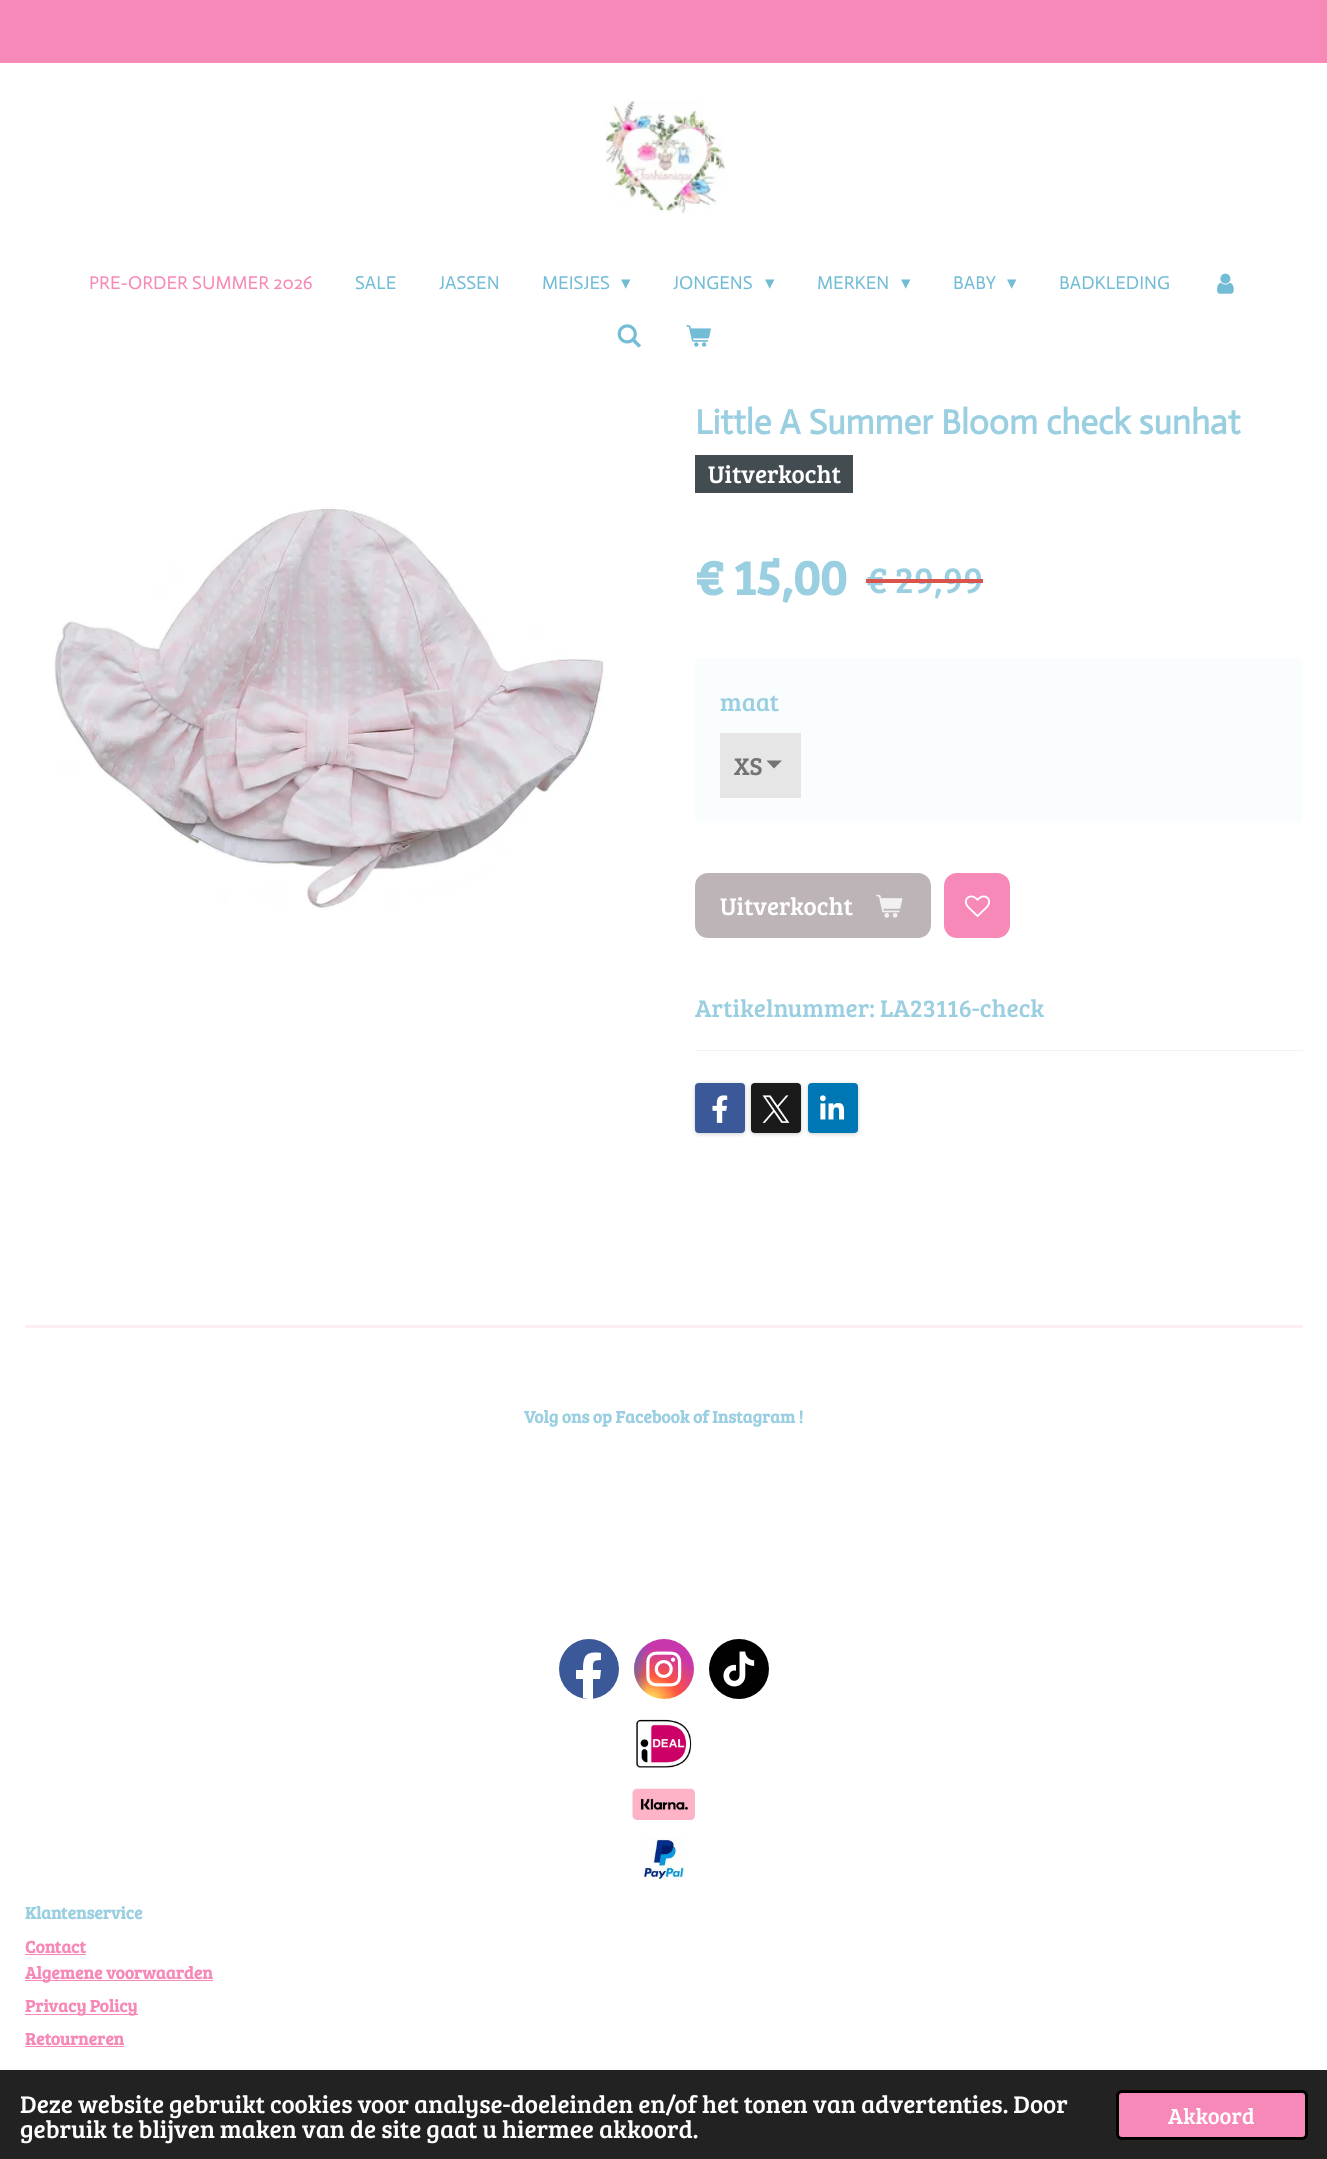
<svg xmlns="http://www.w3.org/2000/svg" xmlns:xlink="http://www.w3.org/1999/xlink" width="1327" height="2159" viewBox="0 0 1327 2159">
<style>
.cls-1{font:18.75px Actor;fill:#f789b8}
.cls-2{font:18.75px Actor;fill:#73bcd5}
.cls-3{font:18.75px DejaVu Sans;fill:#73bcd5}
.cls-4{font:bold 35px Actor;fill:#9acfe1}
.cls-5{font:25px Bree Serif;fill:#ffffff}
.cls-6{font:bold 50px Bree Serif;fill:#9acfe1}
.cls-7{font:37.5px Bree Serif;fill:#9acfe1}
.cls-8{font:25px Bree Serif;fill:#9acfe1}
.cls-9{font:25px Bree Serif;fill:#737373}
.cls-10{font:bold 17.5px Bree Serif;fill:#9acfe1}
.cls-11{font:bold 17.5px Bree Serif;fill:#f789b8}
.cls-12{font:22.5px Bree Serif;fill:#ffffff}
</style>
<defs>
<radialGradient id="g1" gradientUnits="userSpaceOnUse" cx="0" cy="0" r="1" gradientTransform="matrix(59 0 0 54 649 1702)"><stop offset="0" stop-color="#ffdd55"/><stop offset="0.1" stop-color="#ffdd55"/><stop offset="0.5" stop-color="#ff543e"/><stop offset="1" stop-color="#c837ab"/></radialGradient>
<radialGradient id="g2" gradientUnits="userSpaceOnUse" cx="0" cy="0" r="1" gradientTransform="matrix(26 0 0 108 624 1643)"><stop offset="0" stop-color="#3771c8"/><stop offset="0.13" stop-color="#3771c8"/><stop offset="1" stop-color="#3771c8" stop-opacity="0"/></radialGradient>
</defs>
<rect width="100%" height="100%" fill="#ffffff"/>
<rect fill="#f789b8" x="0" y="0" width="1327" height="63"/>
<image xlink:href="image0.png" x="606" y="100" width="120" height="114"/>
<image xlink:href="image1.png" x="1217" y="273" width="17" height="21"/>
<image xlink:href="image2.png" x="617" y="324" width="24" height="24"/>
<image xlink:href="image3.png" x="686" y="325" width="25" height="22"/>
<rect fill="#424c51" x="695" y="455" width="158" height="38"/>
<image xlink:href="image4.png" x="54" y="507" width="550" height="403"/>
<rect fill="#fafdfe" x="695" y="658" width="608" height="165" rx="5"/>
<rect fill="#e6e6e6" x="720" y="733" width="81" height="65"/>
<path fill="#737373" d="M774 768.5L766.5 760.5H782Z"/>
<rect fill="#bdb4b8" x="695" y="873" width="236" height="65" rx="13"/>
<image xlink:href="image5.png" x="876" y="894" width="27" height="24"/>
<rect fill="#f789b8" x="944" y="873" width="66" height="65" rx="13"/>
<image xlink:href="image6.png" x="965" y="895" width="25" height="22"/>
<rect fill="#ebf5f9" x="695" y="1050" width="608" height="1"/>
<rect fill="#000000" fill-opacity="0.2" filter="blur(2px)" x="695" y="1084" width="50" height="50" rx="4"/>
<rect fill="#3b5998" x="695" y="1083" width="50" height="50" rx="4"/>
<image xlink:href="image7.png" x="712" y="1095" width="16" height="28"/>
<rect fill="#000000" fill-opacity="0.2" filter="blur(2px)" x="751" y="1084" width="50" height="50" rx="4"/>
<rect fill="#1a1a1a" x="751" y="1083" width="50" height="50" rx="4"/>
<image xlink:href="image8.png" x="762" y="1095" width="28" height="28"/>
<rect fill="#000000" fill-opacity="0.2" filter="blur(2px)" x="808" y="1084" width="50" height="50" rx="4"/>
<rect fill="#0077b5" x="808" y="1083" width="50" height="50" rx="4"/>
<image xlink:href="image9.png" x="820" y="1095" width="25" height="25"/>
<rect fill="#feedf4" x="25" y="1325" width="1278" height="3"/>
<circle fill="#3b5998" cx="589" cy="1669" r="30"/>
<path fill="#ffffff" d="M600 1679H593V1699C590 1699 586 1699 583 1698V1679H576V1670H583C583 1655 586 1651 601 1653V1660C592 1660 593 1663 593 1670H601Z"/>
<circle fill="url(#g1)" cx="664" cy="1669" r="30"/>
<circle fill="url(#g2)" cx="664" cy="1669" r="30"/>
<image xlink:href="image10.png" x="646" y="1651" width="36" height="36"/>
<circle fill="#010101" cx="739" cy="1669" r="30"/>
<image xlink:href="image11.png" x="723" y="1651" width="32" height="36"/>
<image xlink:href="image12.png" x="636" y="1719" width="56" height="49"/>
<image xlink:href="image13.png" x="632" y="1788" width="63" height="32"/>
<image xlink:href="image14.png" x="642" y="1837" width="43" height="43"/>
<rect fill="#f789b8" x="25" y="1954" width="61" height="1"/>
<rect fill="#f789b8" x="25" y="1980" width="188" height="1"/>
<rect fill="#f789b8" x="25" y="2014" width="113" height="1"/>
<rect fill="#f789b8" x="25" y="2046" width="99" height="1"/>
<rect fill="#222222" x="0" y="2070" width="1327" height="89"/>
<rect fill="#f789b8" stroke="#000000" stroke-width="3" x="1117.5" y="2091.5" width="189" height="47" rx="4.5"/>
<text class="cls-1" x="89" y="289">PRE-ORDER SUMMER 2026</text>
<text class="cls-2" x="355" y="289">SALE</text>
<text class="cls-2" x="439" y="289">JASSEN</text>
<text class="cls-2" x="542" y="289">MEISJES</text>
<text class="cls-3" x="621" y="289">▾</text>
<text class="cls-2" x="673" y="289">JONGENS</text>
<text class="cls-3" x="765" y="289">▾</text>
<text class="cls-2" x="817" y="289">MERKEN</text>
<text class="cls-3" x="901" y="289">▾</text>
<text class="cls-2" x="953" y="289">BABY</text>
<text class="cls-3" x="1007" y="289">▾</text>
<text class="cls-2" x="1059" y="289">BADKLEDING</text>
<text class="cls-4" x="695" y="434">Little A Summer Bloom check sunhat</text>
<text class="cls-5" x="708" y="483">Uitverkocht</text>
<text class="cls-6" x="695" y="595">€ 15,00</text>
<text class="cls-7" x="866" y="593">€ 29,99</text>
<rect fill="#d9534f" x="866" y="579" width="117" height="4"/>
<text class="cls-8" x="720" y="711">maat</text>
<text class="cls-9" x="734" y="775">XS</text>
<text class="cls-5" x="720" y="915">Uitverkocht</text>
<text class="cls-8" x="695" y="1017">Artikelnummer: LA23116-check</text>
<text class="cls-10" x="524" y="1423">Volg ons op Facebook of Instagram !</text>
<text class="cls-10" x="25" y="1919">Klantenservice</text>
<text class="cls-11"><tspan x="25" y="1953">Contact</tspan><tspan x="25" y="1979">Algemene voorwaarden</tspan><tspan x="25" y="2012">Privacy Policy</tspan><tspan x="25" y="2045">Retourneren</tspan></text>
<text class="cls-5"><tspan x="20" y="2113">Deze website gebruikt cookies voor analyse-doeleinden en/of het tonen van advertenties. Door</tspan><tspan x="20" y="2138">gebruik te blijven maken van de site gaat u hiermee akkoord.</tspan></text>
<text class="cls-12" x="1168" y="2124">Akkoord</text>
</svg>
